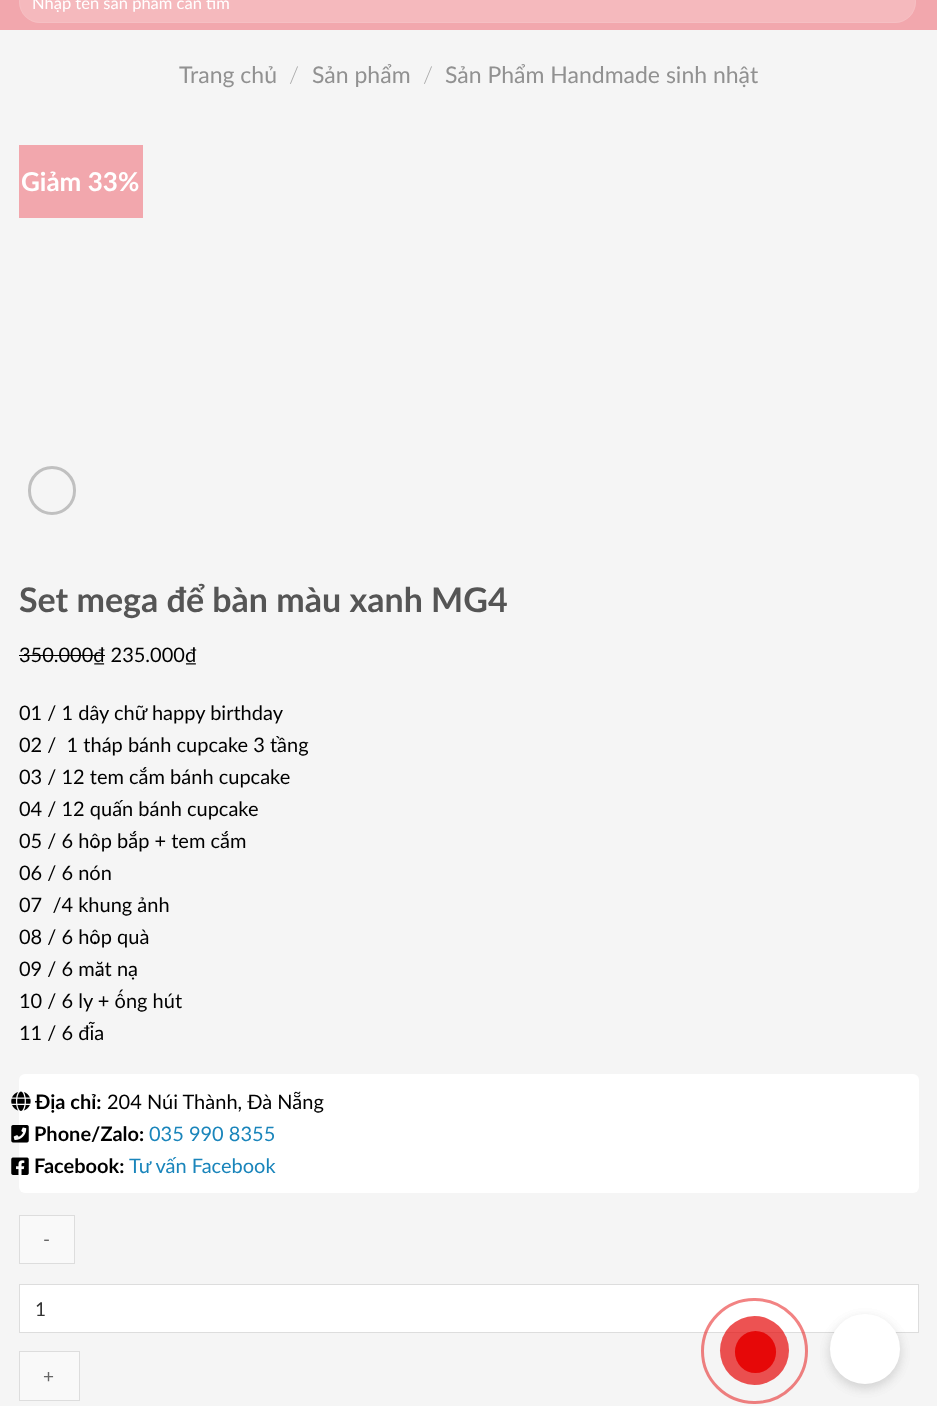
<svg xmlns="http://www.w3.org/2000/svg" xmlns:xlink="http://www.w3.org/1999/xlink" width="937" height="1406" viewBox="0 0 937 1406">
<style>
.cls-1{font:16.5px Lato;fill:#ffffff}
.cls-2{font:23px Lato;fill:#919191}
.cls-3{font:300 23px Lato;fill:#ababab}
.cls-4{font:bold 26px Lato;fill:#ffffff}
.cls-5{font:bold 34px Lato;fill:#555555}
.cls-6{font:20px Lato;fill:#000000}
.cls-7{font:bold 20px Lato;fill:#000000}
.cls-8{font:20px Lato;fill:#1a85bb}
.cls-9{font:19px Lato;letter-spacing:1px;fill:#666666}
.cls-10{font:19px Lato;fill:#333333}
</style>
<rect width="100%" height="100%" fill="#f5f5f5"/>
<rect fill="#f2a7ad" x="0" y="0" width="937" height="30"/>
<rect fill="#f5b9bd" x="19" y="-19" width="897" height="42" rx="21"/>
<rect fill="none" stroke="#ffffff" stroke-opacity="0.09" x="19.5" y="-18.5" width="896" height="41" rx="20.5"/>
<rect fill="#f2a7ad" x="19" y="145" width="124" height="73"/>
<rect fill="none" stroke="#c0c0c0" stroke-width="3" x="29.5" y="467.5" width="45" height="46" rx="22.5"/>
<rect fill="#000000" x="19" y="655" width="86" height="1"/>
<rect fill="#ffffff" x="19" y="1074" width="900" height="119" rx="6"/>
<image xlink:href="image0.png" x="11" y="1091" width="20" height="20"/>
<image xlink:href="image1.png" x="11" y="1125" width="18" height="18"/>
<image xlink:href="image2.png" x="11" y="1157" width="18" height="18"/>
<rect fill="#f9f9f9" stroke="#dddddd" x="19.5" y="1215.5" width="55" height="48"/>
<rect fill="#ffffff" stroke="#dddddd" x="19.5" y="1284.5" width="899" height="48"/>
<rect fill="#f9f9f9" stroke="#dddddd" x="19.5" y="1351.5" width="60" height="49"/>
<rect fill="none" stroke="#e60808" stroke-opacity="0.5" stroke-width="3" x="702.5" y="1299.5" width="104" height="103" rx="51.5"/>
<circle fill="#e60808" fill-opacity="0.7" cx="754.5" cy="1350.5" r="34.5"/>
<rect fill="#e60808" x="735" y="1331" width="41" height="42" rx="20.5"/>
<rect fill="#000000" fill-opacity="0.08" filter="blur(6px)" x="830" y="1318" width="70" height="70" rx="35"/>
<rect fill="#000000" fill-opacity="0.08" filter="blur(6px)" x="830" y="1318" width="70" height="70" rx="35"/>
<circle fill="#ffffff" stroke="#ffffff" stroke-width="6" cx="865" cy="1349" r="32"/>
<text class="cls-1" x="32" y="9">Nhập tên sản phẩm cần tìm</text>
<text class="cls-2" x="179" y="83">Trang chủ</text>
<text class="cls-3" x="289" y="83">/</text>
<text class="cls-2" x="312" y="83">Sản phẩm</text>
<text class="cls-3" x="423" y="83">/</text>
<text class="cls-2" x="445" y="83">Sản Phẩm Handmade sinh nhật</text>
<text class="cls-4" x="21" y="191">Giảm 33%</text>
<text class="cls-5" x="19" y="612">Set mega để bàn màu xanh MG4</text>
<text class="cls-6" x="19" y="662">350.000₫ 235.000₫</text>
<text class="cls-6" xml:space="preserve"><tspan x="19" y="720">01 / 1 dây chữ happy birthday</tspan><tspan x="19" y="752">02 /  1 tháp bánh cupcake 3 tầng</tspan><tspan x="19" y="784">03 / 12 tem cắm bánh cupcake</tspan><tspan x="19" y="816">04 / 12 quấn bánh cupcake</tspan><tspan x="19" y="848">05 / 6 hộp bắp + tem cắm</tspan><tspan x="19" y="880">06 / 6 nón</tspan><tspan x="19" y="912">07  /4 khung ảnh</tspan><tspan x="19" y="944">08 / 6 hộp quà</tspan><tspan x="19" y="976">09 / 6 mặt nạ</tspan><tspan x="19" y="1008">10 / 6 ly + ống hút</tspan><tspan x="19" y="1040">11 / 6 đĩa</tspan></text>
<text class="cls-7" x="35" y="1109">Địa chỉ:</text>
<text class="cls-6" x="107" y="1109">204 Núi Thành, Đà Nẵng</text>
<text class="cls-7" x="34" y="1141">Phone/Zalo:</text>
<text class="cls-8" x="149" y="1141">035 990 8355</text>
<text class="cls-7" x="34" y="1173">Facebook:</text>
<text class="cls-8" x="129" y="1173">Tư vấn Facebook</text>
<text class="cls-9" x="43" y="1246">-</text>
<text class="cls-10" x="35" y="1316">1</text>
<text class="cls-9" x="43" y="1383">+</text>
</svg>
